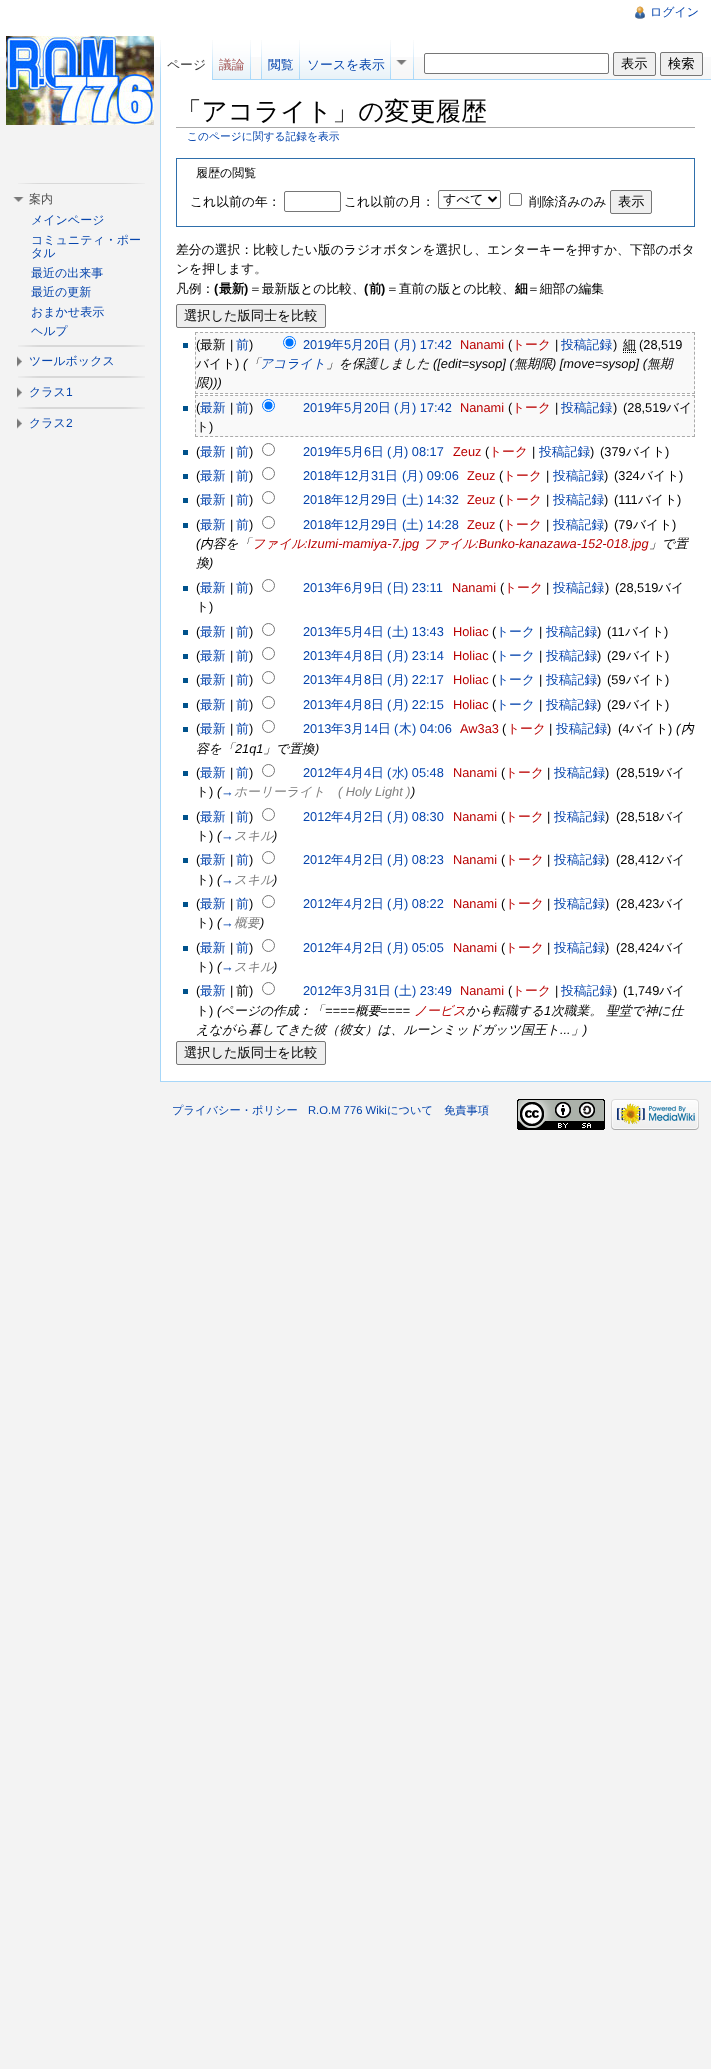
<svg xmlns="http://www.w3.org/2000/svg" xmlns:xlink="http://www.w3.org/1999/xlink" width="711" height="2069" viewBox="0 0 711 2069">
<style>
.cls-1{font:500 12px WenQuanYi Zen Hei;fill:#0645ad}
.cls-2{font:500 12.8px WenQuanYi Zen Hei;fill:#333333}
.cls-3{font:500 12.8px WenQuanYi Zen Hei;fill:#a55858}
.cls-4{font:500 12.8px WenQuanYi Zen Hei;fill:#0645ad}
.cls-5{font:500 13.25px WenQuanYi Zen Hei;fill:#000000}
.cls-6{font:500 12px WenQuanYi Zen Hei;fill:#4d4d4d}
.cls-7{font:12px Liberation Sans;fill:#0645ad}
.cls-8{font:500 25.6px WenQuanYi Zen Hei;fill:#000000}
.cls-9{font:500 10.75px WenQuanYi Zen Hei;fill:#0645ad}
.cls-10{font:500 12px WenQuanYi Zen Hei;fill:#000000}
.cls-11{font:500 12.8px WenQuanYi Zen Hei;fill:#000000}
.cls-12{font:bold 12.8px Liberation Sans;fill:#000000}
.cls-13{font:bold 12.8px WenQuanYi Zen Hei;fill:#000000}
.cls-14{font:12.8px Liberation Sans;fill:#000000}
.cls-15{font:12.8px Liberation Sans;fill:#0645ad}
.cls-16{font:12.8px Liberation Sans;fill:#ba0000}
.cls-17{font:500 12.8px WenQuanYi Zen Hei;fill:#ba0000}
.cls-18{font:italic 12.8px Liberation Sans;fill:#000000}
.cls-19{font:italic 500 12.8px WenQuanYi Zen Hei;fill:#000000}
.cls-20{font:italic 500 12.8px WenQuanYi Zen Hei;fill:#0645ad}
.cls-21{font:italic 500 12.8px WenQuanYi Zen Hei;fill:#ba0000}
.cls-22{font:italic 12.8px Liberation Sans;fill:#ba0000}
.cls-23{font:italic 12.8px Liberation Sans;fill:#0645ad}
.cls-24{font:italic 500 12.8px WenQuanYi Zen Hei;fill:#808080}
.cls-25{font:italic 12.8px Liberation Sans;fill:#808080}
.cls-26{font:500 11.25px WenQuanYi Zen Hei;fill:#0645ad}
.cls-27{font:11.25px Liberation Sans;fill:#0645ad}
</style>
<rect width="100%" height="100%" fill="#f3f3f3"/>
<rect fill="#ffffff" x="0" y="0" width="711" height="57"/>
<image xlink:href="image0.png" x="0" y="57" width="711" height="23"/>
<image xlink:href="image1.png" x="635" y="6" width="10" height="13"/>
<image xlink:href="image2.png" x="160" y="40" width="1" height="39"/>
<rect fill="#a7d7f9" x="160" y="79" width="551" height="1"/>
<rect fill="#ffffff" x="161" y="57" width="51" height="23"/>
<image xlink:href="image3.png" x="212" y="40" width="1" height="40"/>
<image xlink:href="image4.png" x="213" y="40" width="38" height="40"/>
<image xlink:href="image5.png" x="250" y="40" width="1" height="39"/>
<image xlink:href="image2.png" x="261" y="40" width="1" height="39"/>
<image xlink:href="image4.png" x="262" y="40" width="38" height="40"/>
<image xlink:href="image5.png" x="299" y="40" width="1" height="39"/>
<image xlink:href="image6.png" x="300" y="40" width="91" height="40"/>
<image xlink:href="image5.png" x="390" y="40" width="1" height="39"/>
<image xlink:href="image7.png" x="396" y="60" width="11" height="5"/>
<image xlink:href="image2.png" x="413" y="40" width="1" height="39"/>
<rect fill="#ffffff" stroke="#767676" x="424.5" y="53.5" width="184" height="20" rx="1.5"/>
<rect fill="#efefef" stroke="#767676" x="613.5" y="52.5" width="42" height="23" rx="1.5"/>
<rect fill="#efefef" stroke="#767676" x="660.5" y="52.5" width="42" height="23" rx="1.5"/>
<image xlink:href="image8.png" x="6" y="36" width="148" height="89"/>
<image xlink:href="image9.png" x="18" y="183" width="127" height="1"/>
<image xlink:href="image10.png" x="13" y="197" width="11" height="5"/>
<image xlink:href="image11.png" x="18" y="345" width="127" height="2"/>
<image xlink:href="image12.png" x="17" y="356" width="5" height="11"/>
<image xlink:href="image11.png" x="18" y="376" width="127" height="2"/>
<image xlink:href="image12.png" x="17" y="387" width="5" height="11"/>
<image xlink:href="image11.png" x="18" y="407" width="127" height="2"/>
<image xlink:href="image12.png" x="17" y="418" width="5" height="11"/>
<rect fill="#ffffff" x="161" y="80" width="550" height="1001"/>
<rect fill="#a7d7f9" x="160" y="80" width="1" height="1001"/>
<rect fill="#aaaaaa" x="176" y="127" width="519" height="1"/>
<rect fill="none" stroke="#2f6fab" x="176.5" y="158.5" width="518" height="68"/>
<rect fill="none" stroke="#767676" x="284.5" y="191.5" width="56" height="20" rx="1.5"/>
<rect fill="none" stroke="#767676" x="438.5" y="190.5" width="62" height="18" rx="1.5"/>
<path fill="none" stroke="#000000" stroke-width="2" d="M488.5 197L492.5 201L496.5 197"/>
<rect fill="none" stroke="#767676" x="509.5" y="193.5" width="12" height="12" rx="1.5"/>
<rect fill="#efefef" stroke="#767676" x="610.5" y="190.5" width="41" height="23" rx="1.5"/>
<rect fill="#efefef" stroke="#767676" x="176.5" y="304.5" width="149" height="23" rx="1.5"/>
<rect fill="#f9f9f9" x="195" y="332" width="500" height="62"/>
<path fill="none" stroke="#aaaaaa" stroke-dasharray="3 2.02" d="M195 332.5H695"/>
<path fill="none" stroke="#aaaaaa" stroke-dasharray="3 1.92" d="M694.5 332V394"/>
<path fill="none" stroke="#aaaaaa" stroke-dasharray="3 2.02" d="M195 393.5H695"/>
<path fill="none" stroke="#aaaaaa" stroke-dasharray="3 1.92" d="M195.5 332V394"/>
<rect fill="#00528c" x="183" y="343" width="5" height="5"/>
<circle fill="#ffffff" stroke="#0075ff" cx="289.5" cy="342.5" r="6"/>
<circle fill="#0075ff" cx="289.5" cy="342.5" r="4"/>
<path fill="none" stroke="#000000" stroke-dasharray="1 1" d="M623 352.5H636M623 350.5H636"/>
<rect fill="#f9f9f9" x="195" y="395" width="500" height="42"/>
<path fill="none" stroke="#aaaaaa" stroke-dasharray="3 2.02" d="M195 395.5H695"/>
<path fill="none" stroke="#aaaaaa" stroke-dasharray="3 1.88" d="M694.5 395V437"/>
<path fill="none" stroke="#aaaaaa" stroke-dasharray="3 2.02" d="M195 436.5H695"/>
<path fill="none" stroke="#aaaaaa" stroke-dasharray="3 1.88" d="M195.5 395V437"/>
<rect fill="#00528c" x="183" y="406" width="5" height="5"/>
<circle fill="#ffffff" stroke="#0075ff" cx="268.5" cy="405.5" r="6"/>
<circle fill="#0075ff" cx="268.5" cy="405.5" r="4"/>
<rect fill="#00528c" x="183" y="450" width="5" height="5"/>
<circle fill="none" stroke="#767676" cx="268.5" cy="449.5" r="6"/>
<rect fill="#00528c" x="183" y="474" width="5" height="5"/>
<circle fill="none" stroke="#767676" cx="268.5" cy="473.5" r="6"/>
<rect fill="#00528c" x="183" y="498" width="5" height="5"/>
<circle fill="none" stroke="#767676" cx="268.5" cy="497.5" r="6"/>
<rect fill="#00528c" x="183" y="523" width="5" height="5"/>
<circle fill="none" stroke="#767676" cx="268.5" cy="522.5" r="6"/>
<rect fill="#00528c" x="183" y="586" width="5" height="5"/>
<circle fill="none" stroke="#767676" cx="268.5" cy="585.5" r="6"/>
<rect fill="#00528c" x="183" y="630" width="5" height="5"/>
<circle fill="none" stroke="#767676" cx="268.5" cy="629.5" r="6"/>
<rect fill="#00528c" x="183" y="654" width="5" height="5"/>
<circle fill="none" stroke="#767676" cx="268.5" cy="653.5" r="6"/>
<rect fill="#00528c" x="183" y="678" width="5" height="5"/>
<circle fill="none" stroke="#767676" cx="268.5" cy="677.5" r="6"/>
<rect fill="#00528c" x="183" y="703" width="5" height="5"/>
<circle fill="none" stroke="#767676" cx="268.5" cy="702.5" r="6"/>
<rect fill="#00528c" x="183" y="727" width="5" height="5"/>
<circle fill="none" stroke="#767676" cx="268.5" cy="726.5" r="6"/>
<rect fill="#00528c" x="183" y="771" width="5" height="5"/>
<circle fill="none" stroke="#767676" cx="268.5" cy="770.5" r="6"/>
<rect fill="#00528c" x="183" y="815" width="5" height="5"/>
<circle fill="none" stroke="#767676" cx="268.5" cy="814.5" r="6"/>
<rect fill="#00528c" x="183" y="858" width="5" height="5"/>
<circle fill="none" stroke="#767676" cx="268.5" cy="857.5" r="6"/>
<rect fill="#00528c" x="183" y="902" width="5" height="5"/>
<circle fill="none" stroke="#767676" cx="268.5" cy="901.5" r="6"/>
<rect fill="#00528c" x="183" y="946" width="5" height="5"/>
<circle fill="none" stroke="#767676" cx="268.5" cy="945.5" r="6"/>
<rect fill="#00528c" x="183" y="989" width="5" height="5"/>
<circle fill="none" stroke="#767676" cx="268.5" cy="988.5" r="6"/>
<rect fill="#efefef" stroke="#767676" x="176.5" y="1041.5" width="149" height="23" rx="1.5"/>
<rect fill="#a7d7f9" x="160" y="1081" width="551" height="1"/>
<image xlink:href="image13.png" x="517" y="1099" width="88" height="31"/>
<image xlink:href="image14.png" x="611" y="1099" width="88" height="31"/>
<text class="cls-1" x="650" y="16">ログイン</text>
<text class="cls-2" x="167" y="69">ページ</text>
<text class="cls-3" x="219" y="69">議論</text>
<text class="cls-4" x="268" y="69">閲覧</text>
<text class="cls-4" x="307" y="69">ソースを表示</text>
<text class="cls-5" x="621" y="68">表示</text>
<text class="cls-5" x="668" y="68">検索</text>
<text class="cls-6" x="29" y="203">案内</text>
<text class="cls-1"><tspan x="31" y="224">メインページ</tspan><tspan x="31" y="244">コミュニティ・ポー</tspan><tspan x="31" y="257">タル</tspan><tspan x="31" y="277">最近の出来事</tspan><tspan x="31" y="296">最近の更新</tspan><tspan x="31" y="316">おまかせ表示</tspan><tspan x="31" y="335">ヘルプ</tspan></text>
<text class="cls-1" x="29" y="365">ツールボックス</text>
<text class="cls-1" x="29" y="396">クラス</text>
<text class="cls-7" x="66" y="396">1</text>
<text class="cls-1" x="29" y="427">クラス</text>
<text class="cls-7" x="66" y="427">2</text>
<text class="cls-8" x="176" y="120">「アコライト」の変更履歴</text>
<text class="cls-9" x="187" y="140">このページに関する記録を表示</text>
<text class="cls-10" x="196" y="177">履歴の閲覧</text>
<text class="cls-11" x="190" y="206">これ以前の年：</text>
<text class="cls-11" x="344" y="206">これ以前の月：</text>
<text class="cls-5" x="443" y="204">すべて</text>
<text class="cls-11" x="529" y="206">削除済みのみ</text>
<text class="cls-5" x="618" y="206">表示</text>
<text class="cls-11"><tspan x="176" y="254">差分の選択：比較したい版のラジオボタンを選択し、エンターキーを押すか、下部のボタ</tspan><tspan x="176" y="273">ンを押します。</tspan><tspan x="176" y="293">凡例：</tspan></text>
<text class="cls-12" x="214" y="293">(</text>
<text class="cls-13" x="219" y="293">最新</text>
<text class="cls-12" x="244" y="293">)</text>
<text class="cls-11" x="249" y="293">＝最新版との比較、</text>
<text class="cls-12" x="364" y="293">(</text>
<text class="cls-13" x="369" y="293">前</text>
<text class="cls-12" x="381" y="293">)</text>
<text class="cls-11" x="386" y="293">＝直前の版との比較、</text>
<text class="cls-13" x="515" y="293">細</text>
<text class="cls-11" x="527" y="293">＝細部の編集</text>
<text class="cls-5" x="184" y="320">選択した版同士を比較</text>
<text class="cls-14" x="196" y="349">(</text>
<text class="cls-11" x="200" y="349">最新</text>
<text class="cls-14" x="230" y="349">|</text>
<text class="cls-4" x="236" y="349">前</text>
<text class="cls-14" x="249" y="349">)</text>
<text class="cls-15" x="303" y="349">2019</text>
<text class="cls-4" x="331" y="349">年</text>
<text class="cls-15" x="344" y="349">5</text>
<text class="cls-4" x="351" y="349">月</text>
<text class="cls-15" x="364" y="349">20</text>
<text class="cls-4" x="378" y="349">日</text>
<text class="cls-15" x="394" y="349">(</text>
<text class="cls-4" x="399" y="349">月</text>
<text class="cls-15" x="412" y="349">) 17:42</text>
<text class="cls-16" x="460" y="349">Nanami</text>
<text class="cls-14" x="508" y="349">(</text>
<text class="cls-17" x="512" y="349">トーク</text>
<text class="cls-14" x="555" y="349">|</text>
<text class="cls-4" x="561" y="349">投稿記録</text>
<text class="cls-14" x="613" y="349">)</text>
<text class="cls-11" x="623" y="349">細</text>
<text class="cls-14" x="639" y="349">(28,519</text>
<text class="cls-11" x="196" y="368">バイト</text>
<text class="cls-14" x="235" y="368">)</text>
<text class="cls-18" x="243" y="368">(</text>
<text class="cls-19" x="248" y="368">「</text>
<text class="cls-20" x="260" y="368">アコライト</text>
<text class="cls-19" x="326" y="368">」を保護しました</text>
<text class="cls-18" x="433" y="368">([edit=sysop] (</text>
<text class="cls-19" x="514" y="368">無期限</text>
<text class="cls-18" x="552" y="368">) [move=sysop] (</text>
<text class="cls-19" x="647" y="368">無期</text>
<text class="cls-19" x="196" y="387">限</text>
<text class="cls-18" x="209" y="387">)))</text>
<text class="cls-14" x="196" y="412">(</text>
<text class="cls-4" x="200" y="412">最新</text>
<text class="cls-14" x="230" y="412">|</text>
<text class="cls-4" x="236" y="412">前</text>
<text class="cls-14" x="249" y="412">)</text>
<text class="cls-15" x="303" y="412">2019</text>
<text class="cls-4" x="331" y="412">年</text>
<text class="cls-15" x="344" y="412">5</text>
<text class="cls-4" x="351" y="412">月</text>
<text class="cls-15" x="364" y="412">20</text>
<text class="cls-4" x="378" y="412">日</text>
<text class="cls-15" x="394" y="412">(</text>
<text class="cls-4" x="399" y="412">月</text>
<text class="cls-15" x="412" y="412">) 17:42</text>
<text class="cls-16" x="460" y="412">Nanami</text>
<text class="cls-14" x="508" y="412">(</text>
<text class="cls-17" x="512" y="412">トーク</text>
<text class="cls-14" x="555" y="412">|</text>
<text class="cls-4" x="561" y="412">投稿記録</text>
<text class="cls-14" x="613" y="412">)</text>
<text class="cls-14" x="623" y="412">(28,519</text>
<text class="cls-11" x="666" y="412">バイ</text>
<text class="cls-11" x="196" y="431">ト</text>
<text class="cls-14" x="209" y="431">)</text>
<text class="cls-14" x="196" y="456">(</text>
<text class="cls-4" x="200" y="456">最新</text>
<text class="cls-14" x="230" y="456">|</text>
<text class="cls-4" x="236" y="456">前</text>
<text class="cls-14" x="249" y="456">)</text>
<text class="cls-15" x="303" y="456">2019</text>
<text class="cls-4" x="331" y="456">年</text>
<text class="cls-15" x="344" y="456">5</text>
<text class="cls-4" x="351" y="456">月</text>
<text class="cls-15" x="364" y="456">6</text>
<text class="cls-4" x="371" y="456">日</text>
<text class="cls-15" x="387" y="456">(</text>
<text class="cls-4" x="392" y="456">月</text>
<text class="cls-15" x="404" y="456">) 08:17</text>
<text class="cls-16" x="453" y="456">Zeuz</text>
<text class="cls-14" x="485" y="456">(</text>
<text class="cls-17" x="489" y="456">トーク</text>
<text class="cls-14" x="532" y="456">|</text>
<text class="cls-4" x="539" y="456">投稿記録</text>
<text class="cls-14" x="590" y="456">)</text>
<text class="cls-14" x="600" y="456">(379</text>
<text class="cls-11" x="626" y="456">バイト</text>
<text class="cls-14" x="665" y="456">)</text>
<text class="cls-14" x="196" y="480">(</text>
<text class="cls-4" x="200" y="480">最新</text>
<text class="cls-14" x="230" y="480">|</text>
<text class="cls-4" x="236" y="480">前</text>
<text class="cls-14" x="249" y="480">)</text>
<text class="cls-15" x="303" y="480">2018</text>
<text class="cls-4" x="331" y="480">年</text>
<text class="cls-15" x="344" y="480">12</text>
<text class="cls-4" x="358" y="480">月</text>
<text class="cls-15" x="371" y="480">31</text>
<text class="cls-4" x="385" y="480">日</text>
<text class="cls-15" x="402" y="480">(</text>
<text class="cls-4" x="406" y="480">月</text>
<text class="cls-15" x="419" y="480">) 09:06</text>
<text class="cls-16" x="467" y="480">Zeuz</text>
<text class="cls-14" x="499" y="480">(</text>
<text class="cls-17" x="503" y="480">トーク</text>
<text class="cls-14" x="546" y="480">|</text>
<text class="cls-4" x="553" y="480">投稿記録</text>
<text class="cls-14" x="604" y="480">)</text>
<text class="cls-14" x="614" y="480">(324</text>
<text class="cls-11" x="640" y="480">バイト</text>
<text class="cls-14" x="679" y="480">)</text>
<text class="cls-14" x="196" y="504">(</text>
<text class="cls-4" x="200" y="504">最新</text>
<text class="cls-14" x="230" y="504">|</text>
<text class="cls-4" x="236" y="504">前</text>
<text class="cls-14" x="249" y="504">)</text>
<text class="cls-15" x="303" y="504">2018</text>
<text class="cls-4" x="331" y="504">年</text>
<text class="cls-15" x="344" y="504">12</text>
<text class="cls-4" x="358" y="504">月</text>
<text class="cls-15" x="371" y="504">29</text>
<text class="cls-4" x="385" y="504">日</text>
<text class="cls-15" x="402" y="504">(</text>
<text class="cls-4" x="406" y="504">土</text>
<text class="cls-15" x="419" y="504">) 14:32</text>
<text class="cls-16" x="467" y="504">Zeuz</text>
<text class="cls-14" x="499" y="504">(</text>
<text class="cls-17" x="503" y="504">トーク</text>
<text class="cls-14" x="546" y="504">|</text>
<text class="cls-4" x="553" y="504">投稿記録</text>
<text class="cls-14" x="604" y="504">)</text>
<text class="cls-14" x="614" y="504">(111</text>
<text class="cls-11" x="638" y="504">バイト</text>
<text class="cls-14" x="677" y="504">)</text>
<text class="cls-14" x="196" y="529">(</text>
<text class="cls-4" x="200" y="529">最新</text>
<text class="cls-14" x="230" y="529">|</text>
<text class="cls-4" x="236" y="529">前</text>
<text class="cls-14" x="249" y="529">)</text>
<text class="cls-15" x="303" y="529">2018</text>
<text class="cls-4" x="331" y="529">年</text>
<text class="cls-15" x="344" y="529">12</text>
<text class="cls-4" x="358" y="529">月</text>
<text class="cls-15" x="371" y="529">29</text>
<text class="cls-4" x="385" y="529">日</text>
<text class="cls-15" x="402" y="529">(</text>
<text class="cls-4" x="406" y="529">土</text>
<text class="cls-15" x="419" y="529">) 14:28</text>
<text class="cls-16" x="467" y="529">Zeuz</text>
<text class="cls-14" x="499" y="529">(</text>
<text class="cls-17" x="503" y="529">トーク</text>
<text class="cls-14" x="546" y="529">|</text>
<text class="cls-4" x="553" y="529">投稿記録</text>
<text class="cls-14" x="604" y="529">)</text>
<text class="cls-14" x="614" y="529">(79</text>
<text class="cls-11" x="633" y="529">バイト</text>
<text class="cls-14" x="672" y="529">)</text>
<text class="cls-18" x="196" y="548">(</text>
<text class="cls-19" x="200" y="548">内容を「</text>
<text class="cls-21" x="252" y="548">ファイル</text>
<text class="cls-22" x="304" y="548">:Izumi-mamiya-7.jpg</text>
<text class="cls-21" x="423" y="548">ファイル</text>
<text class="cls-22" x="475" y="548">:Bunko-kanazawa-152-018.jpg</text>
<text class="cls-19" x="649" y="548">」で置</text>
<text class="cls-19" x="196" y="567">換</text>
<text class="cls-18" x="209" y="567">)</text>
<text class="cls-14" x="196" y="592">(</text>
<text class="cls-4" x="200" y="592">最新</text>
<text class="cls-14" x="230" y="592">|</text>
<text class="cls-4" x="236" y="592">前</text>
<text class="cls-14" x="249" y="592">)</text>
<text class="cls-15" x="303" y="592">2013</text>
<text class="cls-4" x="331" y="592">年</text>
<text class="cls-15" x="344" y="592">6</text>
<text class="cls-4" x="351" y="592">月</text>
<text class="cls-15" x="364" y="592">9</text>
<text class="cls-4" x="371" y="592">日</text>
<text class="cls-15" x="387" y="592">(</text>
<text class="cls-4" x="392" y="592">日</text>
<text class="cls-15" x="404" y="592">) 23:11</text>
<text class="cls-16" x="452" y="592">Nanami</text>
<text class="cls-14" x="500" y="592">(</text>
<text class="cls-17" x="504" y="592">トーク</text>
<text class="cls-14" x="546" y="592">|</text>
<text class="cls-4" x="553" y="592">投稿記録</text>
<text class="cls-14" x="605" y="592">)</text>
<text class="cls-14" x="615" y="592">(28,519</text>
<text class="cls-11" x="658" y="592">バイ</text>
<text class="cls-11" x="196" y="611">ト</text>
<text class="cls-14" x="209" y="611">)</text>
<text class="cls-14" x="196" y="636">(</text>
<text class="cls-4" x="200" y="636">最新</text>
<text class="cls-14" x="230" y="636">|</text>
<text class="cls-4" x="236" y="636">前</text>
<text class="cls-14" x="249" y="636">)</text>
<text class="cls-15" x="303" y="636">2013</text>
<text class="cls-4" x="331" y="636">年</text>
<text class="cls-15" x="344" y="636">5</text>
<text class="cls-4" x="351" y="636">月</text>
<text class="cls-15" x="364" y="636">4</text>
<text class="cls-4" x="371" y="636">日</text>
<text class="cls-15" x="387" y="636">(</text>
<text class="cls-4" x="392" y="636">土</text>
<text class="cls-15" x="404" y="636">) 13:43</text>
<text class="cls-16" x="453" y="636">Holiac</text>
<text class="cls-14" x="492" y="636">(</text>
<text class="cls-4" x="496" y="636">トーク</text>
<text class="cls-14" x="539" y="636">|</text>
<text class="cls-4" x="546" y="636">投稿記録</text>
<text class="cls-14" x="597" y="636">)</text>
<text class="cls-14" x="607" y="636">(11</text>
<text class="cls-11" x="625" y="636">バイト</text>
<text class="cls-14" x="664" y="636">)</text>
<text class="cls-14" x="196" y="660">(</text>
<text class="cls-4" x="200" y="660">最新</text>
<text class="cls-14" x="230" y="660">|</text>
<text class="cls-4" x="236" y="660">前</text>
<text class="cls-14" x="249" y="660">)</text>
<text class="cls-15" x="303" y="660">2013</text>
<text class="cls-4" x="331" y="660">年</text>
<text class="cls-15" x="344" y="660">4</text>
<text class="cls-4" x="351" y="660">月</text>
<text class="cls-15" x="364" y="660">8</text>
<text class="cls-4" x="371" y="660">日</text>
<text class="cls-15" x="387" y="660">(</text>
<text class="cls-4" x="392" y="660">月</text>
<text class="cls-15" x="404" y="660">) 23:14</text>
<text class="cls-16" x="453" y="660">Holiac</text>
<text class="cls-14" x="492" y="660">(</text>
<text class="cls-4" x="496" y="660">トーク</text>
<text class="cls-14" x="539" y="660">|</text>
<text class="cls-4" x="546" y="660">投稿記録</text>
<text class="cls-14" x="597" y="660">)</text>
<text class="cls-14" x="607" y="660">(29</text>
<text class="cls-11" x="626" y="660">バイト</text>
<text class="cls-14" x="665" y="660">)</text>
<text class="cls-14" x="196" y="684">(</text>
<text class="cls-4" x="200" y="684">最新</text>
<text class="cls-14" x="230" y="684">|</text>
<text class="cls-4" x="236" y="684">前</text>
<text class="cls-14" x="249" y="684">)</text>
<text class="cls-15" x="303" y="684">2013</text>
<text class="cls-4" x="331" y="684">年</text>
<text class="cls-15" x="344" y="684">4</text>
<text class="cls-4" x="351" y="684">月</text>
<text class="cls-15" x="364" y="684">8</text>
<text class="cls-4" x="371" y="684">日</text>
<text class="cls-15" x="387" y="684">(</text>
<text class="cls-4" x="392" y="684">月</text>
<text class="cls-15" x="404" y="684">) 22:17</text>
<text class="cls-16" x="453" y="684">Holiac</text>
<text class="cls-14" x="492" y="684">(</text>
<text class="cls-4" x="496" y="684">トーク</text>
<text class="cls-14" x="539" y="684">|</text>
<text class="cls-4" x="546" y="684">投稿記録</text>
<text class="cls-14" x="597" y="684">)</text>
<text class="cls-14" x="607" y="684">(59</text>
<text class="cls-11" x="626" y="684">バイト</text>
<text class="cls-14" x="665" y="684">)</text>
<text class="cls-14" x="196" y="709">(</text>
<text class="cls-4" x="200" y="709">最新</text>
<text class="cls-14" x="230" y="709">|</text>
<text class="cls-4" x="236" y="709">前</text>
<text class="cls-14" x="249" y="709">)</text>
<text class="cls-15" x="303" y="709">2013</text>
<text class="cls-4" x="331" y="709">年</text>
<text class="cls-15" x="344" y="709">4</text>
<text class="cls-4" x="351" y="709">月</text>
<text class="cls-15" x="364" y="709">8</text>
<text class="cls-4" x="371" y="709">日</text>
<text class="cls-15" x="387" y="709">(</text>
<text class="cls-4" x="392" y="709">月</text>
<text class="cls-15" x="404" y="709">) 22:15</text>
<text class="cls-16" x="453" y="709">Holiac</text>
<text class="cls-14" x="492" y="709">(</text>
<text class="cls-4" x="496" y="709">トーク</text>
<text class="cls-14" x="539" y="709">|</text>
<text class="cls-4" x="546" y="709">投稿記録</text>
<text class="cls-14" x="597" y="709">)</text>
<text class="cls-14" x="607" y="709">(29</text>
<text class="cls-11" x="626" y="709">バイト</text>
<text class="cls-14" x="665" y="709">)</text>
<text class="cls-14" x="196" y="733">(</text>
<text class="cls-4" x="200" y="733">最新</text>
<text class="cls-14" x="230" y="733">|</text>
<text class="cls-4" x="236" y="733">前</text>
<text class="cls-14" x="249" y="733">)</text>
<text class="cls-15" x="303" y="733">2013</text>
<text class="cls-4" x="331" y="733">年</text>
<text class="cls-15" x="344" y="733">3</text>
<text class="cls-4" x="351" y="733">月</text>
<text class="cls-15" x="364" y="733">14</text>
<text class="cls-4" x="378" y="733">日</text>
<text class="cls-15" x="394" y="733">(</text>
<text class="cls-4" x="399" y="733">木</text>
<text class="cls-15" x="412" y="733">) 04:06</text>
<text class="cls-16" x="460" y="733">Aw3a3</text>
<text class="cls-14" x="502" y="733">(</text>
<text class="cls-17" x="507" y="733">トーク</text>
<text class="cls-14" x="549" y="733">|</text>
<text class="cls-4" x="556" y="733">投稿記録</text>
<text class="cls-14" x="607" y="733">)</text>
<text class="cls-14" x="618" y="733">(4</text>
<text class="cls-11" x="629" y="733">バイト</text>
<text class="cls-14" x="668" y="733">)</text>
<text class="cls-18" x="676" y="733">(</text>
<text class="cls-19" x="681" y="733">内</text>
<text class="cls-19" x="196" y="753">容を「</text>
<text class="cls-18" x="235" y="753">21q1</text>
<text class="cls-19" x="263" y="753">」で置換</text>
<text class="cls-18" x="315" y="753">)</text>
<text class="cls-14" x="196" y="777">(</text>
<text class="cls-4" x="200" y="777">最新</text>
<text class="cls-14" x="230" y="777">|</text>
<text class="cls-4" x="236" y="777">前</text>
<text class="cls-14" x="249" y="777">)</text>
<text class="cls-15" x="303" y="777">2012</text>
<text class="cls-4" x="331" y="777">年</text>
<text class="cls-15" x="344" y="777">4</text>
<text class="cls-4" x="351" y="777">月</text>
<text class="cls-15" x="364" y="777">4</text>
<text class="cls-4" x="371" y="777">日</text>
<text class="cls-15" x="387" y="777">(</text>
<text class="cls-4" x="392" y="777">水</text>
<text class="cls-15" x="404" y="777">) 05:48</text>
<text class="cls-16" x="453" y="777">Nanami</text>
<text class="cls-14" x="501" y="777">(</text>
<text class="cls-17" x="505" y="777">トーク</text>
<text class="cls-14" x="547" y="777">|</text>
<text class="cls-4" x="554" y="777">投稿記録</text>
<text class="cls-14" x="605" y="777">)</text>
<text class="cls-14" x="616" y="777">(28,519</text>
<text class="cls-11" x="659" y="777">バイ</text>
<text class="cls-11" x="196" y="796">ト</text>
<text class="cls-14" x="209" y="796">)</text>
<text class="cls-18" x="217" y="796">(</text>
<text class="cls-23" x="221" y="796">→</text>
<text class="cls-24" x="234" y="796">ホーリーライト</text>
<text class="cls-25" x="338" y="796">( Holy Light )</text>
<text class="cls-18" x="411" y="796">)</text>
<text class="cls-14" x="196" y="821">(</text>
<text class="cls-4" x="200" y="821">最新</text>
<text class="cls-14" x="230" y="821">|</text>
<text class="cls-4" x="236" y="821">前</text>
<text class="cls-14" x="249" y="821">)</text>
<text class="cls-15" x="303" y="821">2012</text>
<text class="cls-4" x="331" y="821">年</text>
<text class="cls-15" x="344" y="821">4</text>
<text class="cls-4" x="351" y="821">月</text>
<text class="cls-15" x="364" y="821">2</text>
<text class="cls-4" x="371" y="821">日</text>
<text class="cls-15" x="387" y="821">(</text>
<text class="cls-4" x="392" y="821">月</text>
<text class="cls-15" x="404" y="821">) 08:30</text>
<text class="cls-16" x="453" y="821">Nanami</text>
<text class="cls-14" x="501" y="821">(</text>
<text class="cls-17" x="505" y="821">トーク</text>
<text class="cls-14" x="547" y="821">|</text>
<text class="cls-4" x="554" y="821">投稿記録</text>
<text class="cls-14" x="605" y="821">)</text>
<text class="cls-14" x="616" y="821">(28,518</text>
<text class="cls-11" x="659" y="821">バイ</text>
<text class="cls-11" x="196" y="840">ト</text>
<text class="cls-14" x="209" y="840">)</text>
<text class="cls-18" x="217" y="840">(</text>
<text class="cls-24" x="234" y="840">スキル</text>
<text class="cls-23" x="221" y="840">→</text>
<text class="cls-18" x="273" y="840">)</text>
<text class="cls-14" x="196" y="864">(</text>
<text class="cls-4" x="200" y="864">最新</text>
<text class="cls-14" x="230" y="864">|</text>
<text class="cls-4" x="236" y="864">前</text>
<text class="cls-14" x="249" y="864">)</text>
<text class="cls-15" x="303" y="864">2012</text>
<text class="cls-4" x="331" y="864">年</text>
<text class="cls-15" x="344" y="864">4</text>
<text class="cls-4" x="351" y="864">月</text>
<text class="cls-15" x="364" y="864">2</text>
<text class="cls-4" x="371" y="864">日</text>
<text class="cls-15" x="387" y="864">(</text>
<text class="cls-4" x="392" y="864">月</text>
<text class="cls-15" x="404" y="864">) 08:23</text>
<text class="cls-16" x="453" y="864">Nanami</text>
<text class="cls-14" x="501" y="864">(</text>
<text class="cls-17" x="505" y="864">トーク</text>
<text class="cls-14" x="547" y="864">|</text>
<text class="cls-4" x="554" y="864">投稿記録</text>
<text class="cls-14" x="605" y="864">)</text>
<text class="cls-14" x="616" y="864">(28,412</text>
<text class="cls-11" x="659" y="864">バイ</text>
<text class="cls-11" x="196" y="884">ト</text>
<text class="cls-14" x="209" y="884">)</text>
<text class="cls-18" x="217" y="884">(</text>
<text class="cls-24" x="234" y="884">スキル</text>
<text class="cls-23" x="221" y="884">→</text>
<text class="cls-18" x="273" y="884">)</text>
<text class="cls-14" x="196" y="908">(</text>
<text class="cls-4" x="200" y="908">最新</text>
<text class="cls-14" x="230" y="908">|</text>
<text class="cls-4" x="236" y="908">前</text>
<text class="cls-14" x="249" y="908">)</text>
<text class="cls-15" x="303" y="908">2012</text>
<text class="cls-4" x="331" y="908">年</text>
<text class="cls-15" x="344" y="908">4</text>
<text class="cls-4" x="351" y="908">月</text>
<text class="cls-15" x="364" y="908">2</text>
<text class="cls-4" x="371" y="908">日</text>
<text class="cls-15" x="387" y="908">(</text>
<text class="cls-4" x="392" y="908">月</text>
<text class="cls-15" x="404" y="908">) 08:22</text>
<text class="cls-16" x="453" y="908">Nanami</text>
<text class="cls-14" x="501" y="908">(</text>
<text class="cls-17" x="505" y="908">トーク</text>
<text class="cls-14" x="547" y="908">|</text>
<text class="cls-4" x="554" y="908">投稿記録</text>
<text class="cls-14" x="605" y="908">)</text>
<text class="cls-14" x="616" y="908">(28,423</text>
<text class="cls-11" x="659" y="908">バイ</text>
<text class="cls-11" x="196" y="927">ト</text>
<text class="cls-14" x="209" y="927">)</text>
<text class="cls-18" x="217" y="927">(</text>
<text class="cls-24" x="234" y="927">概要</text>
<text class="cls-23" x="221" y="927">→</text>
<text class="cls-18" x="260" y="927">)</text>
<text class="cls-14" x="196" y="952">(</text>
<text class="cls-4" x="200" y="952">最新</text>
<text class="cls-14" x="230" y="952">|</text>
<text class="cls-4" x="236" y="952">前</text>
<text class="cls-14" x="249" y="952">)</text>
<text class="cls-15" x="303" y="952">2012</text>
<text class="cls-4" x="331" y="952">年</text>
<text class="cls-15" x="344" y="952">4</text>
<text class="cls-4" x="351" y="952">月</text>
<text class="cls-15" x="364" y="952">2</text>
<text class="cls-4" x="371" y="952">日</text>
<text class="cls-15" x="387" y="952">(</text>
<text class="cls-4" x="392" y="952">月</text>
<text class="cls-15" x="404" y="952">) 05:05</text>
<text class="cls-16" x="453" y="952">Nanami</text>
<text class="cls-14" x="501" y="952">(</text>
<text class="cls-17" x="505" y="952">トーク</text>
<text class="cls-14" x="547" y="952">|</text>
<text class="cls-4" x="554" y="952">投稿記録</text>
<text class="cls-14" x="605" y="952">)</text>
<text class="cls-14" x="616" y="952">(28,424</text>
<text class="cls-11" x="659" y="952">バイ</text>
<text class="cls-11" x="196" y="971">ト</text>
<text class="cls-14" x="209" y="971">)</text>
<text class="cls-18" x="217" y="971">(</text>
<text class="cls-24" x="234" y="971">スキル</text>
<text class="cls-23" x="221" y="971">→</text>
<text class="cls-18" x="273" y="971">)</text>
<text class="cls-14" x="196" y="995">(</text>
<text class="cls-4" x="200" y="995">最新</text>
<text class="cls-14" x="230" y="995">|</text>
<text class="cls-11" x="236" y="995">前</text>
<text class="cls-14" x="249" y="995">)</text>
<text class="cls-15" x="303" y="995">2012</text>
<text class="cls-4" x="331" y="995">年</text>
<text class="cls-15" x="344" y="995">3</text>
<text class="cls-4" x="351" y="995">月</text>
<text class="cls-15" x="364" y="995">31</text>
<text class="cls-4" x="378" y="995">日</text>
<text class="cls-15" x="394" y="995">(</text>
<text class="cls-4" x="399" y="995">土</text>
<text class="cls-15" x="412" y="995">) 23:49</text>
<text class="cls-16" x="460" y="995">Nanami</text>
<text class="cls-14" x="508" y="995">(</text>
<text class="cls-17" x="512" y="995">トーク</text>
<text class="cls-14" x="555" y="995">|</text>
<text class="cls-4" x="561" y="995">投稿記録</text>
<text class="cls-14" x="613" y="995">)</text>
<text class="cls-14" x="623" y="995">(1,749</text>
<text class="cls-11" x="659" y="995">バイ</text>
<text class="cls-11" x="196" y="1015">ト</text>
<text class="cls-14" x="209" y="1015">)</text>
<text class="cls-18" x="217" y="1015">(</text>
<text class="cls-19" x="221" y="1015">ページの作成：「</text>
<text class="cls-18" x="325" y="1015">====</text>
<text class="cls-19" x="355" y="1015">概要</text>
<text class="cls-18" x="380" y="1015">====</text>
<text class="cls-21" x="414" y="1015">ノービス</text>
<text class="cls-19" x="466" y="1015">から転職する</text>
<text class="cls-18" x="544" y="1015">1</text>
<text class="cls-19" x="551" y="1015">次職業。</text>
<text class="cls-19" x="606" y="1015">聖堂で神に仕</text>
<text class="cls-19" x="196" y="1034">えながら暮してきた彼（彼女）は、ルーンミッドガッツ国王ト</text>
<text class="cls-18" x="560" y="1034">...</text>
<text class="cls-19" x="571" y="1034">」</text>
<text class="cls-18" x="583" y="1034">)</text>
<text class="cls-5" x="184" y="1057">選択した版同士を比較</text>
<text class="cls-26" x="172" y="1114">プライバシー・ポリシー</text>
<text class="cls-27" x="308" y="1114">R.O.M 776 Wiki</text>
<text class="cls-26" x="387" y="1114">について</text>
<text class="cls-26" x="444" y="1114">免責事項</text>
</svg>
